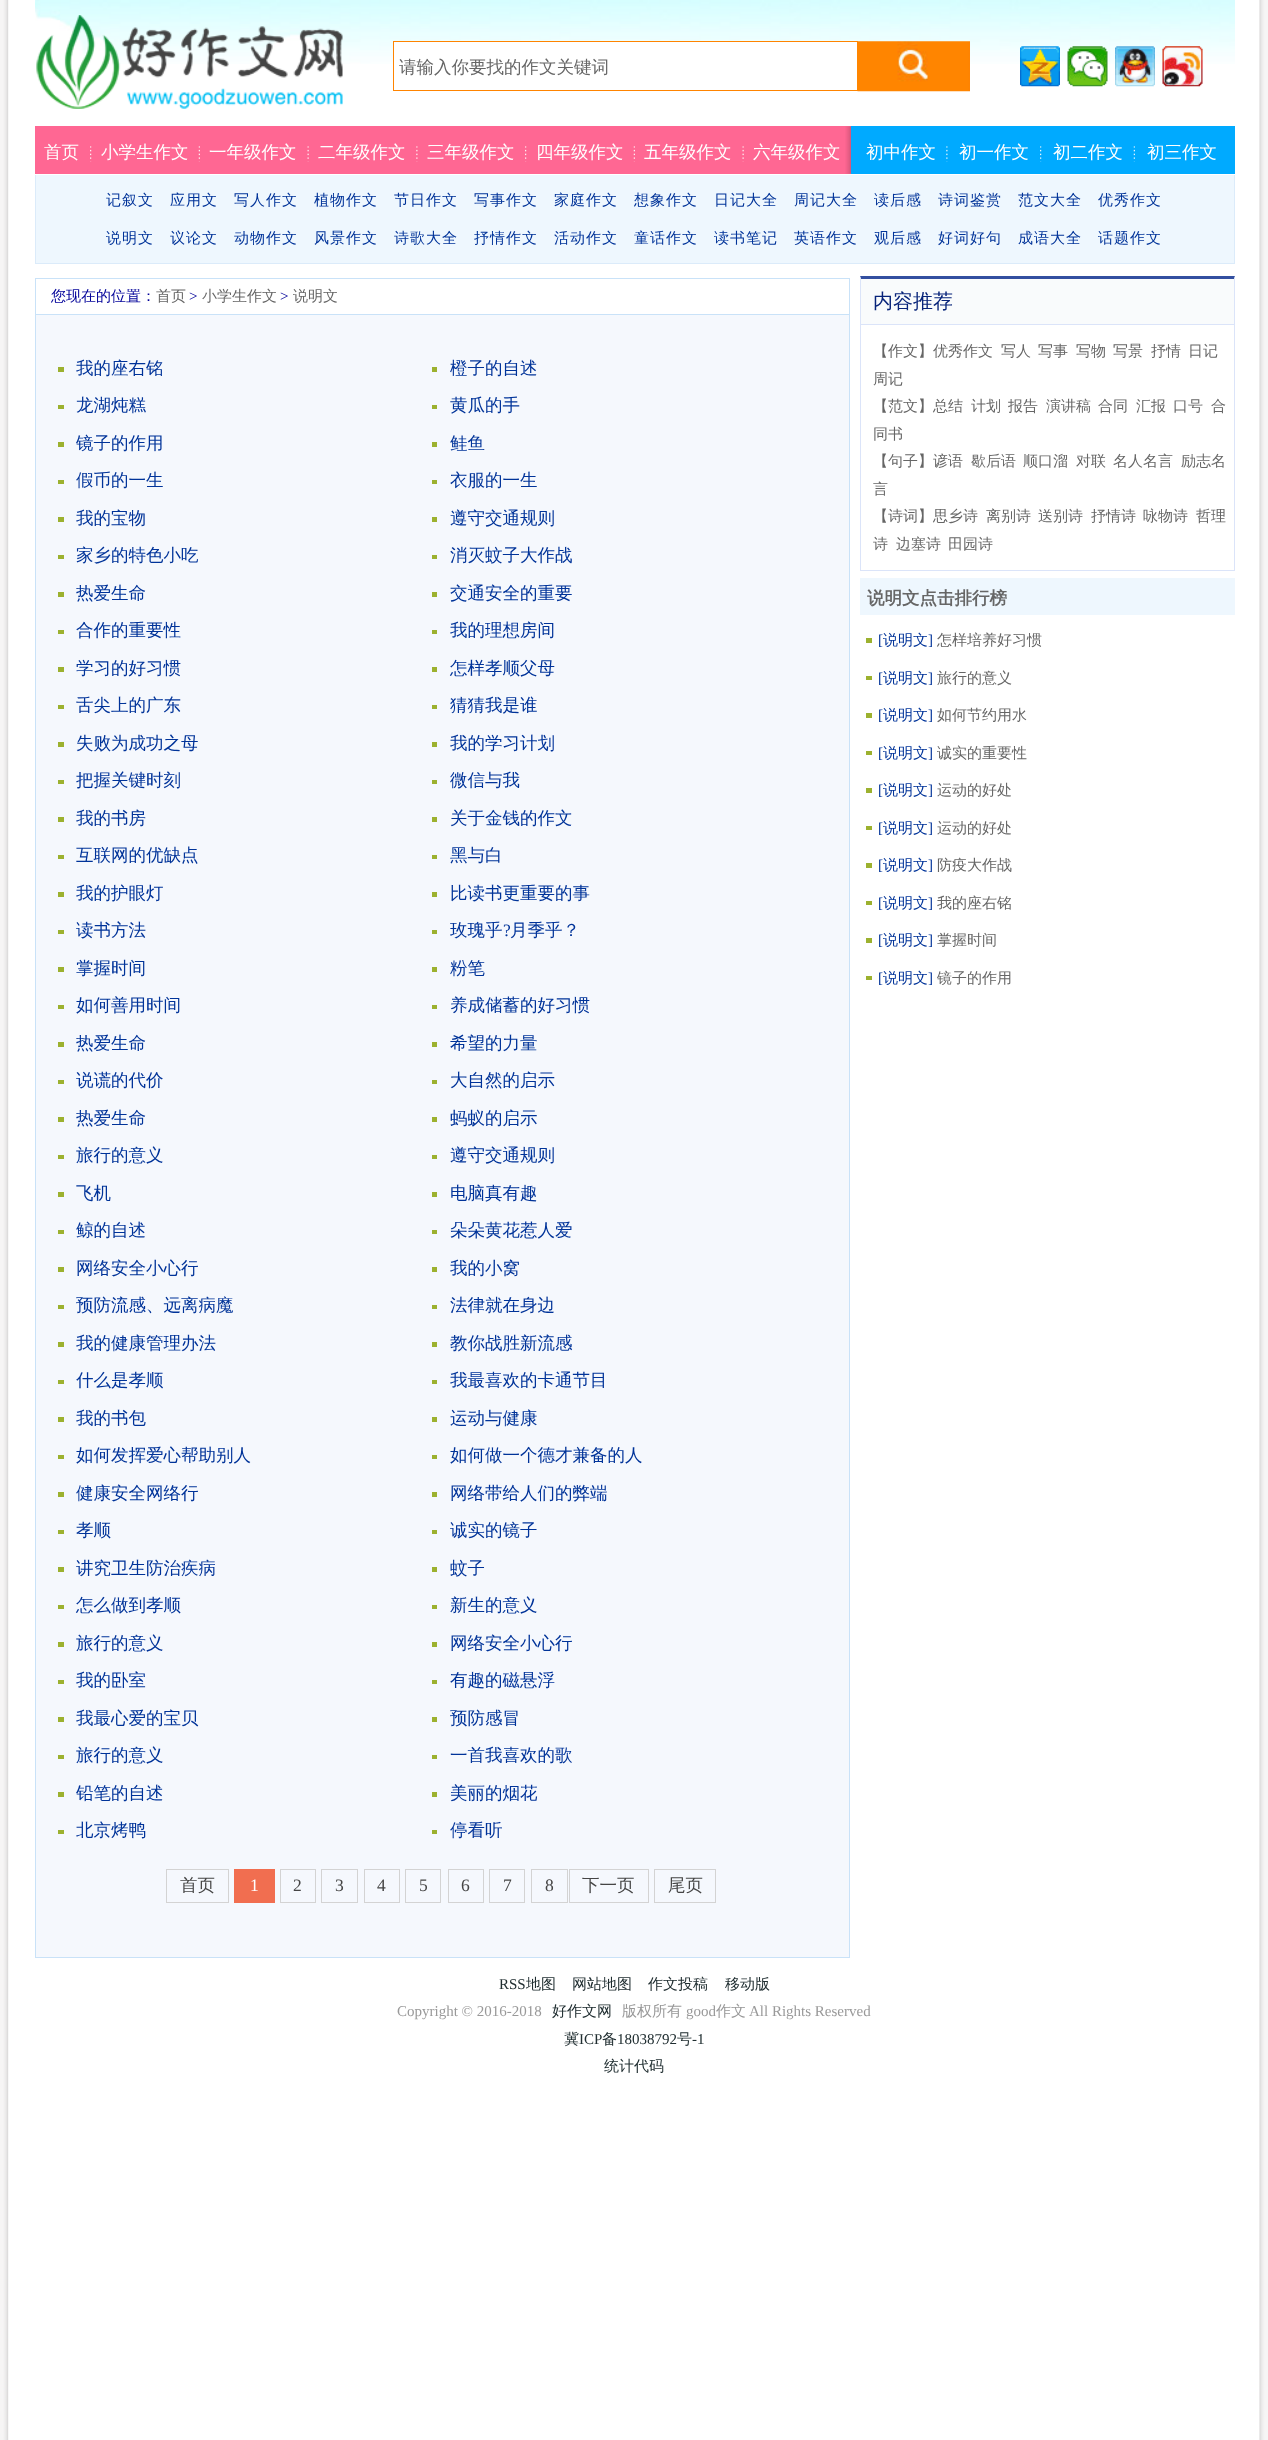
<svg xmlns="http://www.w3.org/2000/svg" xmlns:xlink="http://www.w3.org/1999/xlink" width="1268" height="2440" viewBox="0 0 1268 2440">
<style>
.cls-1{font:500 17.5px WenQuanYi Zen Hei;fill:#666666}
.cls-2{font:500 17.5px WenQuanYi Zen Hei;fill:#ffffff}
.cls-3{font:500 15px WenQuanYi Zen Hei;letter-spacing:1px;fill:#003399}
.cls-4{font:500 15px WenQuanYi Zen Hei;fill:#000099}
.cls-5{font:500 15px WenQuanYi Zen Hei;fill:#666666}
.cls-6{font:15px Liberation Serif;fill:#000099}
.cls-7{font:500 17.5px WenQuanYi Zen Hei;fill:#003399}
.cls-8{font:17.5px Liberation Serif;fill:#003399}
.cls-9{font:500 17.5px WenQuanYi Zen Hei;fill:#454545}
.cls-10{font:17.5px Liberation Serif;fill:#ffffff}
.cls-11{font:17.5px Liberation Serif;fill:#454545}
.cls-12{font:500 20px WenQuanYi Zen Hei;fill:#072379}
.cls-13{font:bold 17.5px WenQuanYi Zen Hei;fill:#666666}
.cls-14{font:15px Liberation Serif;fill:#003399}
.cls-15{font:500 15px WenQuanYi Zen Hei;fill:#003399}
.cls-16{font:15px Liberation Serif;fill:#202e31}
.cls-17{font:500 15px WenQuanYi Zen Hei;fill:#202e31}
.cls-18{font:15px Liberation Serif;fill:#999999}
.cls-19{font:500 15px WenQuanYi Zen Hei;fill:#999999}
</style>
<rect width="100%" height="100%" fill="#ffffff"/>
<image xlink:href="image0.png" x="0" y="0" width="1268" height="2440"/>
<image xlink:href="image1.png" x="35" y="0" width="1200" height="64"/>
<image xlink:href="image2.png" x="36" y="15" width="307" height="94"/>
<rect fill="#ffffff" x="394" y="42" width="463" height="22"/>
<rect fill="none" stroke="#ff8400" x="393.5" y="41.5" width="464" height="49"/>
<image xlink:href="image3.png" x="857" y="41" width="113" height="51"/>
<image xlink:href="image4.png" x="1020" y="46" width="40" height="41"/>
<image xlink:href="image5.png" x="1067" y="46" width="41" height="41"/>
<image xlink:href="image6.png" x="1115" y="46" width="40" height="41"/>
<image xlink:href="image7.png" x="1162" y="46" width="41" height="41"/>
<rect fill="#00aaff" x="1228" y="126" width="7" height="48"/>
<rect fill="#ff6793" x="35" y="126" width="816" height="48"/>
<image xlink:href="image8.png" x="845" y="126" width="6" height="48"/>
<image xlink:href="image9.png" x="90" y="146" width="2" height="16"/>
<image xlink:href="image10.png" x="198" y="146" width="2" height="16"/>
<image xlink:href="image11.png" x="307" y="146" width="2" height="16"/>
<image xlink:href="image12.png" x="416" y="146" width="2" height="16"/>
<image xlink:href="image9.png" x="525" y="146" width="2" height="16"/>
<image xlink:href="image10.png" x="633" y="146" width="2" height="16"/>
<image xlink:href="image11.png" x="742" y="146" width="2" height="16"/>
<rect fill="#00aaff" x="851" y="126" width="377" height="48"/>
<image xlink:href="image13.png" x="946" y="146" width="2" height="16"/>
<image xlink:href="image14.png" x="1040" y="146" width="2" height="16"/>
<image xlink:href="image15.png" x="1133" y="146" width="2" height="16"/>
<rect fill="#eef7fe" x="36" y="175" width="1198" height="88"/>
<rect fill="#dbebfa" x="1234" y="175" width="1" height="89"/>
<rect fill="#dbebfa" x="35" y="263" width="1200" height="1"/>
<rect fill="#dbebfa" x="35" y="175" width="1" height="89"/>
<rect fill="#f5f8fd" x="36" y="315" width="813" height="1642"/>
<rect fill="none" stroke="#c9e2f8" x="35.5" y="278.5" width="814" height="1679"/>
<rect fill="#c9e2f8" x="36" y="314" width="813" height="1"/>
<rect fill="#9cb12f" x="58" y="367" width="6" height="5"/>
<rect fill="#9cb12f" x="432" y="367" width="5" height="5"/>
<rect fill="#9cb12f" x="58" y="405" width="6" height="4"/>
<rect fill="#9cb12f" x="432" y="405" width="5" height="4"/>
<rect fill="#9cb12f" x="58" y="442" width="6" height="5"/>
<rect fill="#9cb12f" x="432" y="442" width="5" height="5"/>
<rect fill="#9cb12f" x="58" y="480" width="6" height="4"/>
<rect fill="#9cb12f" x="432" y="480" width="5" height="4"/>
<rect fill="#9cb12f" x="58" y="517" width="6" height="5"/>
<rect fill="#9cb12f" x="432" y="517" width="5" height="5"/>
<rect fill="#9cb12f" x="58" y="555" width="6" height="4"/>
<rect fill="#9cb12f" x="432" y="555" width="5" height="4"/>
<rect fill="#9cb12f" x="58" y="592" width="6" height="5"/>
<rect fill="#9cb12f" x="432" y="592" width="5" height="5"/>
<rect fill="#9cb12f" x="58" y="630" width="6" height="4"/>
<rect fill="#9cb12f" x="432" y="630" width="5" height="4"/>
<rect fill="#9cb12f" x="58" y="667" width="6" height="5"/>
<rect fill="#9cb12f" x="432" y="667" width="5" height="5"/>
<rect fill="#9cb12f" x="58" y="705" width="6" height="4"/>
<rect fill="#9cb12f" x="432" y="705" width="5" height="4"/>
<rect fill="#9cb12f" x="58" y="742" width="6" height="5"/>
<rect fill="#9cb12f" x="432" y="742" width="5" height="5"/>
<rect fill="#9cb12f" x="58" y="780" width="6" height="4"/>
<rect fill="#9cb12f" x="432" y="780" width="5" height="4"/>
<rect fill="#9cb12f" x="58" y="817" width="6" height="5"/>
<rect fill="#9cb12f" x="432" y="817" width="5" height="5"/>
<rect fill="#9cb12f" x="58" y="855" width="6" height="4"/>
<rect fill="#9cb12f" x="432" y="855" width="5" height="4"/>
<rect fill="#9cb12f" x="58" y="892" width="6" height="5"/>
<rect fill="#9cb12f" x="432" y="892" width="5" height="5"/>
<rect fill="#9cb12f" x="58" y="930" width="6" height="4"/>
<rect fill="#9cb12f" x="432" y="930" width="5" height="4"/>
<rect fill="#9cb12f" x="58" y="967" width="6" height="5"/>
<rect fill="#9cb12f" x="432" y="967" width="5" height="5"/>
<rect fill="#9cb12f" x="58" y="1005" width="6" height="4"/>
<rect fill="#9cb12f" x="432" y="1005" width="5" height="4"/>
<rect fill="#9cb12f" x="58" y="1042" width="6" height="5"/>
<rect fill="#9cb12f" x="432" y="1042" width="5" height="5"/>
<rect fill="#9cb12f" x="58" y="1080" width="6" height="4"/>
<rect fill="#9cb12f" x="432" y="1080" width="5" height="4"/>
<rect fill="#9cb12f" x="58" y="1117" width="6" height="5"/>
<rect fill="#9cb12f" x="432" y="1117" width="5" height="5"/>
<rect fill="#9cb12f" x="58" y="1155" width="6" height="4"/>
<rect fill="#9cb12f" x="432" y="1155" width="5" height="4"/>
<rect fill="#9cb12f" x="58" y="1192" width="6" height="5"/>
<rect fill="#9cb12f" x="432" y="1192" width="5" height="5"/>
<rect fill="#9cb12f" x="58" y="1230" width="6" height="4"/>
<rect fill="#9cb12f" x="432" y="1230" width="5" height="4"/>
<rect fill="#9cb12f" x="58" y="1267" width="6" height="5"/>
<rect fill="#9cb12f" x="432" y="1267" width="5" height="5"/>
<rect fill="#9cb12f" x="58" y="1305" width="6" height="4"/>
<rect fill="#9cb12f" x="432" y="1305" width="5" height="4"/>
<rect fill="#9cb12f" x="58" y="1342" width="6" height="5"/>
<rect fill="#9cb12f" x="432" y="1342" width="5" height="5"/>
<rect fill="#9cb12f" x="58" y="1380" width="6" height="4"/>
<rect fill="#9cb12f" x="432" y="1380" width="5" height="4"/>
<rect fill="#9cb12f" x="58" y="1417" width="6" height="5"/>
<rect fill="#9cb12f" x="432" y="1417" width="5" height="5"/>
<rect fill="#9cb12f" x="58" y="1455" width="6" height="4"/>
<rect fill="#9cb12f" x="432" y="1455" width="5" height="4"/>
<rect fill="#9cb12f" x="58" y="1492" width="6" height="5"/>
<rect fill="#9cb12f" x="432" y="1492" width="5" height="5"/>
<rect fill="#9cb12f" x="58" y="1530" width="6" height="4"/>
<rect fill="#9cb12f" x="432" y="1530" width="5" height="4"/>
<rect fill="#9cb12f" x="58" y="1567" width="6" height="5"/>
<rect fill="#9cb12f" x="432" y="1567" width="5" height="5"/>
<rect fill="#9cb12f" x="58" y="1605" width="6" height="4"/>
<rect fill="#9cb12f" x="432" y="1605" width="5" height="4"/>
<rect fill="#9cb12f" x="58" y="1642" width="6" height="5"/>
<rect fill="#9cb12f" x="432" y="1642" width="5" height="5"/>
<rect fill="#9cb12f" x="58" y="1680" width="6" height="4"/>
<rect fill="#9cb12f" x="432" y="1680" width="5" height="4"/>
<rect fill="#9cb12f" x="58" y="1717" width="6" height="5"/>
<rect fill="#9cb12f" x="432" y="1717" width="5" height="5"/>
<rect fill="#9cb12f" x="58" y="1755" width="6" height="4"/>
<rect fill="#9cb12f" x="432" y="1755" width="5" height="4"/>
<rect fill="#9cb12f" x="58" y="1792" width="6" height="5"/>
<rect fill="#9cb12f" x="432" y="1792" width="5" height="5"/>
<rect fill="#9cb12f" x="58" y="1830" width="6" height="4"/>
<rect fill="#9cb12f" x="432" y="1830" width="5" height="4"/>
<rect fill="none" stroke="#d3d3d3" x="166.5" y="1869.5" width="62" height="33"/>
<rect fill="#f16e50" x="234" y="1869" width="41" height="34"/>
<rect fill="none" stroke="#d3d3d3" x="280.5" y="1869.5" width="35" height="33"/>
<rect fill="none" stroke="#d3d3d3" x="321.5" y="1869.5" width="36" height="33"/>
<rect fill="none" stroke="#d3d3d3" x="364.5" y="1869.5" width="35" height="33"/>
<rect fill="none" stroke="#d3d3d3" x="405.5" y="1869.5" width="35" height="33"/>
<rect fill="none" stroke="#d3d3d3" x="448.5" y="1869.5" width="35" height="33"/>
<rect fill="none" stroke="#d3d3d3" x="489.5" y="1869.5" width="35" height="33"/>
<rect fill="none" stroke="#d3d3d3" x="531.5" y="1869.5" width="36" height="33"/>
<rect fill="none" stroke="#d3d3d3" x="569.5" y="1869.5" width="79" height="33"/>
<rect fill="none" stroke="#d3d3d3" x="654.5" y="1869.5" width="61" height="33"/>
<rect fill="#f9fbfc" x="861" y="279" width="373" height="45"/>
<path fill="#334fa0" d="M860 276H1235L1234 279H861Z"/>
<path fill="#dbe4f9" d="M1235 276V325L1234 324V279Z"/>
<rect fill="#dbe4f9" x="860" y="324" width="375" height="1"/>
<path fill="#dbe4f9" d="M860 325V276L861 279V324Z"/>
<rect fill="#dbe4f9" x="1234" y="325" width="1" height="246"/>
<rect fill="#dbe4f9" x="860" y="570" width="375" height="1"/>
<rect fill="#dbe4f9" x="860" y="325" width="1" height="246"/>
<rect fill="#eef7fe" x="860" y="578" width="375" height="37"/>
<rect fill="#9cb12f" x="866" y="638" width="6" height="5"/>
<rect fill="#9cb12f" x="866" y="676" width="6" height="4"/>
<rect fill="#9cb12f" x="866" y="713" width="6" height="5"/>
<rect fill="#9cb12f" x="866" y="751" width="6" height="4"/>
<rect fill="#9cb12f" x="866" y="788" width="6" height="5"/>
<rect fill="#9cb12f" x="866" y="826" width="6" height="4"/>
<rect fill="#9cb12f" x="866" y="863" width="6" height="5"/>
<rect fill="#9cb12f" x="866" y="901" width="6" height="4"/>
<rect fill="#9cb12f" x="866" y="938" width="6" height="5"/>
<rect fill="#9cb12f" x="866" y="976" width="6" height="4"/>
<text class="cls-1" x="399" y="73">请输入你要找的作文关键词</text>
<text class="cls-2" x="44" y="158">首页</text>
<text class="cls-2" x="101" y="158">小学生作文</text>
<text class="cls-2" x="209" y="158">一年级作文</text>
<text class="cls-2" x="318" y="158">二年级作文</text>
<text class="cls-2" x="427" y="158">三年级作文</text>
<text class="cls-2" x="536" y="158">四年级作文</text>
<text class="cls-2" x="644" y="158">五年级作文</text>
<text class="cls-2" x="753" y="158">六年级作文</text>
<text class="cls-2" x="866" y="158">初中作文</text>
<text class="cls-2" x="959" y="158">初一作文</text>
<text class="cls-2" x="1053" y="158">初二作文</text>
<text class="cls-2" x="1147" y="158">初三作文</text>
<text class="cls-3" x="106" y="205">记叙文</text>
<text class="cls-3" x="170" y="205">应用文</text>
<text class="cls-3" x="234" y="205">写人作文</text>
<text class="cls-3" x="314" y="205">植物作文</text>
<text class="cls-3" x="394" y="205">节日作文</text>
<text class="cls-3" x="474" y="205">写事作文</text>
<text class="cls-3" x="554" y="205">家庭作文</text>
<text class="cls-3" x="634" y="205">想象作文</text>
<text class="cls-3" x="714" y="205">日记大全</text>
<text class="cls-3" x="794" y="205">周记大全</text>
<text class="cls-3" x="874" y="205">读后感</text>
<text class="cls-3" x="938" y="205">诗词鉴赏</text>
<text class="cls-3" x="1018" y="205">范文大全</text>
<text class="cls-3" x="1098" y="205">优秀作文</text>
<text class="cls-3" x="106" y="243">说明文</text>
<text class="cls-3" x="170" y="243">议论文</text>
<text class="cls-3" x="234" y="243">动物作文</text>
<text class="cls-3" x="314" y="243">风景作文</text>
<text class="cls-3" x="394" y="243">诗歌大全</text>
<text class="cls-3" x="474" y="243">抒情作文</text>
<text class="cls-3" x="554" y="243">活动作文</text>
<text class="cls-3" x="634" y="243">童话作文</text>
<text class="cls-3" x="714" y="243">读书笔记</text>
<text class="cls-3" x="794" y="243">英语作文</text>
<text class="cls-3" x="874" y="243">观后感</text>
<text class="cls-3" x="938" y="243">好词好句</text>
<text class="cls-3" x="1018" y="243">成语大全</text>
<text class="cls-3" x="1098" y="243">话题作文</text>
<text class="cls-4" x="51" y="301">您现在的位置：</text>
<text class="cls-5" x="156" y="301">首页</text>
<text class="cls-6" x="189" y="301">&gt;</text>
<text class="cls-5" x="202" y="301">小学生作文</text>
<text class="cls-6" x="280" y="301">&gt;</text>
<text class="cls-5" x="293" y="301">说明文</text>
<text class="cls-7" x="76" y="374">我的座右铭</text>
<text class="cls-7" x="450" y="374">橙子的自述</text>
<text class="cls-7" x="76" y="411">龙湖炖糕</text>
<text class="cls-7" x="450" y="411">黄瓜的手</text>
<text class="cls-7" x="76" y="449">镜子的作用</text>
<text class="cls-7" x="450" y="449">鲑鱼</text>
<text class="cls-7" x="76" y="486">假币的一生</text>
<text class="cls-7" x="450" y="486">衣服的一生</text>
<text class="cls-7" x="76" y="524">我的宝物</text>
<text class="cls-7" x="450" y="524">遵守交通规则</text>
<text class="cls-7" x="76" y="561">家乡的特色小吃</text>
<text class="cls-7" x="450" y="561">消灭蚊子大作战</text>
<text class="cls-7" x="76" y="599">热爱生命</text>
<text class="cls-7" x="450" y="599">交通安全的重要</text>
<text class="cls-7" x="76" y="636">合作的重要性</text>
<text class="cls-7" x="450" y="636">我的理想房间</text>
<text class="cls-7" x="76" y="674">学习的好习惯</text>
<text class="cls-7" x="450" y="674">怎样孝顺父母</text>
<text class="cls-7" x="76" y="711">舌尖上的广东</text>
<text class="cls-7" x="450" y="711">猜猜我是谁</text>
<text class="cls-7" x="76" y="749">失败为成功之母</text>
<text class="cls-7" x="450" y="749">我的学习计划</text>
<text class="cls-7" x="76" y="786">把握关键时刻</text>
<text class="cls-7" x="450" y="786">微信与我</text>
<text class="cls-7" x="76" y="824">我的书房</text>
<text class="cls-7" x="450" y="824">关于金钱的作文</text>
<text class="cls-7" x="76" y="861">互联网的优缺点</text>
<text class="cls-7" x="450" y="861">黑与白</text>
<text class="cls-7" x="76" y="899">我的护眼灯</text>
<text class="cls-7" x="450" y="899">比读书更重要的事</text>
<text class="cls-7" x="76" y="936">读书方法</text>
<text class="cls-7" x="450" y="936">玫瑰乎</text>
<text class="cls-8" x="503" y="936">?</text>
<text class="cls-7" x="510" y="936">月季乎？</text>
<text class="cls-7" x="76" y="974">掌握时间</text>
<text class="cls-7" x="450" y="974">粉笔</text>
<text class="cls-7" x="76" y="1011">如何善用时间</text>
<text class="cls-7" x="450" y="1011">养成储蓄的好习惯</text>
<text class="cls-7" x="76" y="1049">热爱生命</text>
<text class="cls-7" x="450" y="1049">希望的力量</text>
<text class="cls-7" x="76" y="1086">说谎的代价</text>
<text class="cls-7" x="450" y="1086">大自然的启示</text>
<text class="cls-7" x="76" y="1124">热爱生命</text>
<text class="cls-7" x="450" y="1124">蚂蚁的启示</text>
<text class="cls-7" x="76" y="1161">旅行的意义</text>
<text class="cls-7" x="450" y="1161">遵守交通规则</text>
<text class="cls-7" x="76" y="1199">飞机</text>
<text class="cls-7" x="450" y="1199">电脑真有趣</text>
<text class="cls-7" x="76" y="1236">鲸的自述</text>
<text class="cls-7" x="450" y="1236">朵朵黄花惹人爱</text>
<text class="cls-7" x="76" y="1274">网络安全小心行</text>
<text class="cls-7" x="450" y="1274">我的小窝</text>
<text class="cls-7" x="76" y="1311">预防流感、远离病魔</text>
<text class="cls-7" x="450" y="1311">法律就在身边</text>
<text class="cls-7" x="76" y="1349">我的健康管理办法</text>
<text class="cls-7" x="450" y="1349">教你战胜新流感</text>
<text class="cls-7" x="76" y="1386">什么是孝顺</text>
<text class="cls-7" x="450" y="1386">我最喜欢的卡通节目</text>
<text class="cls-7" x="76" y="1424">我的书包</text>
<text class="cls-7" x="450" y="1424">运动与健康</text>
<text class="cls-7" x="76" y="1461">如何发挥爱心帮助别人</text>
<text class="cls-7" x="450" y="1461">如何做一个德才兼备的人</text>
<text class="cls-7" x="76" y="1499">健康安全网络行</text>
<text class="cls-7" x="450" y="1499">网络带给人们的弊端</text>
<text class="cls-7" x="76" y="1536">孝顺</text>
<text class="cls-7" x="450" y="1536">诚实的镜子</text>
<text class="cls-7" x="76" y="1574">讲究卫生防治疾病</text>
<text class="cls-7" x="450" y="1574">蚊子</text>
<text class="cls-7" x="76" y="1611">怎么做到孝顺</text>
<text class="cls-7" x="450" y="1611">新生的意义</text>
<text class="cls-7" x="76" y="1649">旅行的意义</text>
<text class="cls-7" x="450" y="1649">网络安全小心行</text>
<text class="cls-7" x="76" y="1686">我的卧室</text>
<text class="cls-7" x="450" y="1686">有趣的磁悬浮</text>
<text class="cls-7" x="76" y="1724">我最心爱的宝贝</text>
<text class="cls-7" x="450" y="1724">预防感冒</text>
<text class="cls-7" x="76" y="1761">旅行的意义</text>
<text class="cls-7" x="450" y="1761">一首我喜欢的歌</text>
<text class="cls-7" x="76" y="1799">铅笔的自述</text>
<text class="cls-7" x="450" y="1799">美丽的烟花</text>
<text class="cls-7" x="76" y="1836">北京烤鸭</text>
<text class="cls-7" x="450" y="1836">停看听</text>
<text class="cls-9" x="180" y="1891">首页</text>
<text class="cls-10" x="250" y="1891">1</text>
<text class="cls-11" x="293" y="1891">2</text>
<text class="cls-11" x="335" y="1891">3</text>
<text class="cls-11" x="377" y="1891">4</text>
<text class="cls-11" x="419" y="1891">5</text>
<text class="cls-11" x="461" y="1891">6</text>
<text class="cls-11" x="503" y="1891">7</text>
<text class="cls-11" x="545" y="1891">8</text>
<text class="cls-9" x="582" y="1891">下一页</text>
<text class="cls-9" x="668" y="1891">尾页</text>
<text class="cls-12" x="873" y="308">内容推荐</text>
<text class="cls-5" x="873" y="356">【作文】优秀作文</text>
<text class="cls-5" x="1001" y="356">写人</text>
<text class="cls-5" x="1038" y="356">写事</text>
<text class="cls-5" x="1076" y="356">写物</text>
<text class="cls-5" x="1113" y="356">写景</text>
<text class="cls-5" x="1151" y="356">抒情</text>
<text class="cls-5" x="1188" y="356">日记</text>
<text class="cls-5"><tspan x="873" y="384">周记</tspan><tspan x="873" y="411">【范文】总结</tspan></text>
<text class="cls-5" x="971" y="411">计划</text>
<text class="cls-5" x="1008" y="411">报告</text>
<text class="cls-5" x="1046" y="411">演讲稿</text>
<text class="cls-5" x="1098" y="411">合同</text>
<text class="cls-5" x="1136" y="411">汇报</text>
<text class="cls-5" x="1173" y="411">口号</text>
<text class="cls-5" x="1211" y="411">合</text>
<text class="cls-5"><tspan x="873" y="439">同书</tspan><tspan x="873" y="466">【句子】谚语</tspan></text>
<text class="cls-5" x="971" y="466">歇后语</text>
<text class="cls-5" x="1023" y="466">顺口溜</text>
<text class="cls-5" x="1076" y="466">对联</text>
<text class="cls-5" x="1113" y="466">名人名言</text>
<text class="cls-5" x="1181" y="466">励志名</text>
<text class="cls-5"><tspan x="873" y="494">言</tspan><tspan x="873" y="521">【诗词】思乡诗</tspan></text>
<text class="cls-5" x="986" y="521">离别诗</text>
<text class="cls-5" x="1038" y="521">送别诗</text>
<text class="cls-5" x="1091" y="521">抒情诗</text>
<text class="cls-5" x="1143" y="521">咏物诗</text>
<text class="cls-5" x="1196" y="521">哲理</text>
<text class="cls-5" x="873" y="549">诗</text>
<text class="cls-5" x="896" y="549">边塞诗</text>
<text class="cls-5" x="948" y="549">田园诗</text>
<text class="cls-13" x="867" y="604">说明文点击排行榜</text>
<text class="cls-14" x="878" y="645">[</text>
<text class="cls-15" x="883" y="645">说明文</text>
<text class="cls-14" x="928" y="645">]</text>
<text class="cls-5" x="937" y="645">怎样培养好习惯</text>
<text class="cls-14" x="878" y="683">[</text>
<text class="cls-15" x="883" y="683">说明文</text>
<text class="cls-14" x="928" y="683">]</text>
<text class="cls-5" x="937" y="683">旅行的意义</text>
<text class="cls-14" x="878" y="720">[</text>
<text class="cls-15" x="883" y="720">说明文</text>
<text class="cls-14" x="928" y="720">]</text>
<text class="cls-5" x="937" y="720">如何节约用水</text>
<text class="cls-14" x="878" y="758">[</text>
<text class="cls-15" x="883" y="758">说明文</text>
<text class="cls-14" x="928" y="758">]</text>
<text class="cls-5" x="937" y="758">诚实的重要性</text>
<text class="cls-14" x="878" y="795">[</text>
<text class="cls-15" x="883" y="795">说明文</text>
<text class="cls-14" x="928" y="795">]</text>
<text class="cls-5" x="937" y="795">运动的好处</text>
<text class="cls-14" x="878" y="833">[</text>
<text class="cls-15" x="883" y="833">说明文</text>
<text class="cls-14" x="928" y="833">]</text>
<text class="cls-5" x="937" y="833">运动的好处</text>
<text class="cls-14" x="878" y="870">[</text>
<text class="cls-15" x="883" y="870">说明文</text>
<text class="cls-14" x="928" y="870">]</text>
<text class="cls-5" x="937" y="870">防疫大作战</text>
<text class="cls-14" x="878" y="908">[</text>
<text class="cls-15" x="883" y="908">说明文</text>
<text class="cls-14" x="928" y="908">]</text>
<text class="cls-5" x="937" y="908">我的座右铭</text>
<text class="cls-14" x="878" y="945">[</text>
<text class="cls-15" x="883" y="945">说明文</text>
<text class="cls-14" x="928" y="945">]</text>
<text class="cls-5" x="937" y="945">掌握时间</text>
<text class="cls-14" x="878" y="983">[</text>
<text class="cls-15" x="883" y="983">说明文</text>
<text class="cls-14" x="928" y="983">]</text>
<text class="cls-5" x="937" y="983">镜子的作用</text>
<text class="cls-16" x="499" y="1989">RSS</text>
<text class="cls-17" x="526" y="1989">地图</text>
<text class="cls-17" x="572" y="1989">网站地图</text>
<text class="cls-17" x="648" y="1989">作文投稿</text>
<text class="cls-17" x="725" y="1989">移动版</text>
<text class="cls-18" x="397" y="2016">Copyright © 2016-2018</text>
<text class="cls-17" x="552" y="2016">好作文网</text>
<text class="cls-19" x="622" y="2016">版权所有</text>
<text class="cls-18" x="686" y="2016">good</text>
<text class="cls-19" x="716" y="2016">作文</text>
<text class="cls-18" x="749" y="2016">All Rights Reserved</text>
<text class="cls-17" x="564" y="2044">冀</text>
<text class="cls-16" x="579" y="2044">ICP</text>
<text class="cls-17" x="602" y="2044">备</text>
<text class="cls-16" x="617" y="2044">18038792</text>
<text class="cls-17" x="677" y="2044">号</text>
<text class="cls-16" x="692" y="2044">-1</text>
<text class="cls-17" x="604" y="2071">统计代码</text>
</svg>
